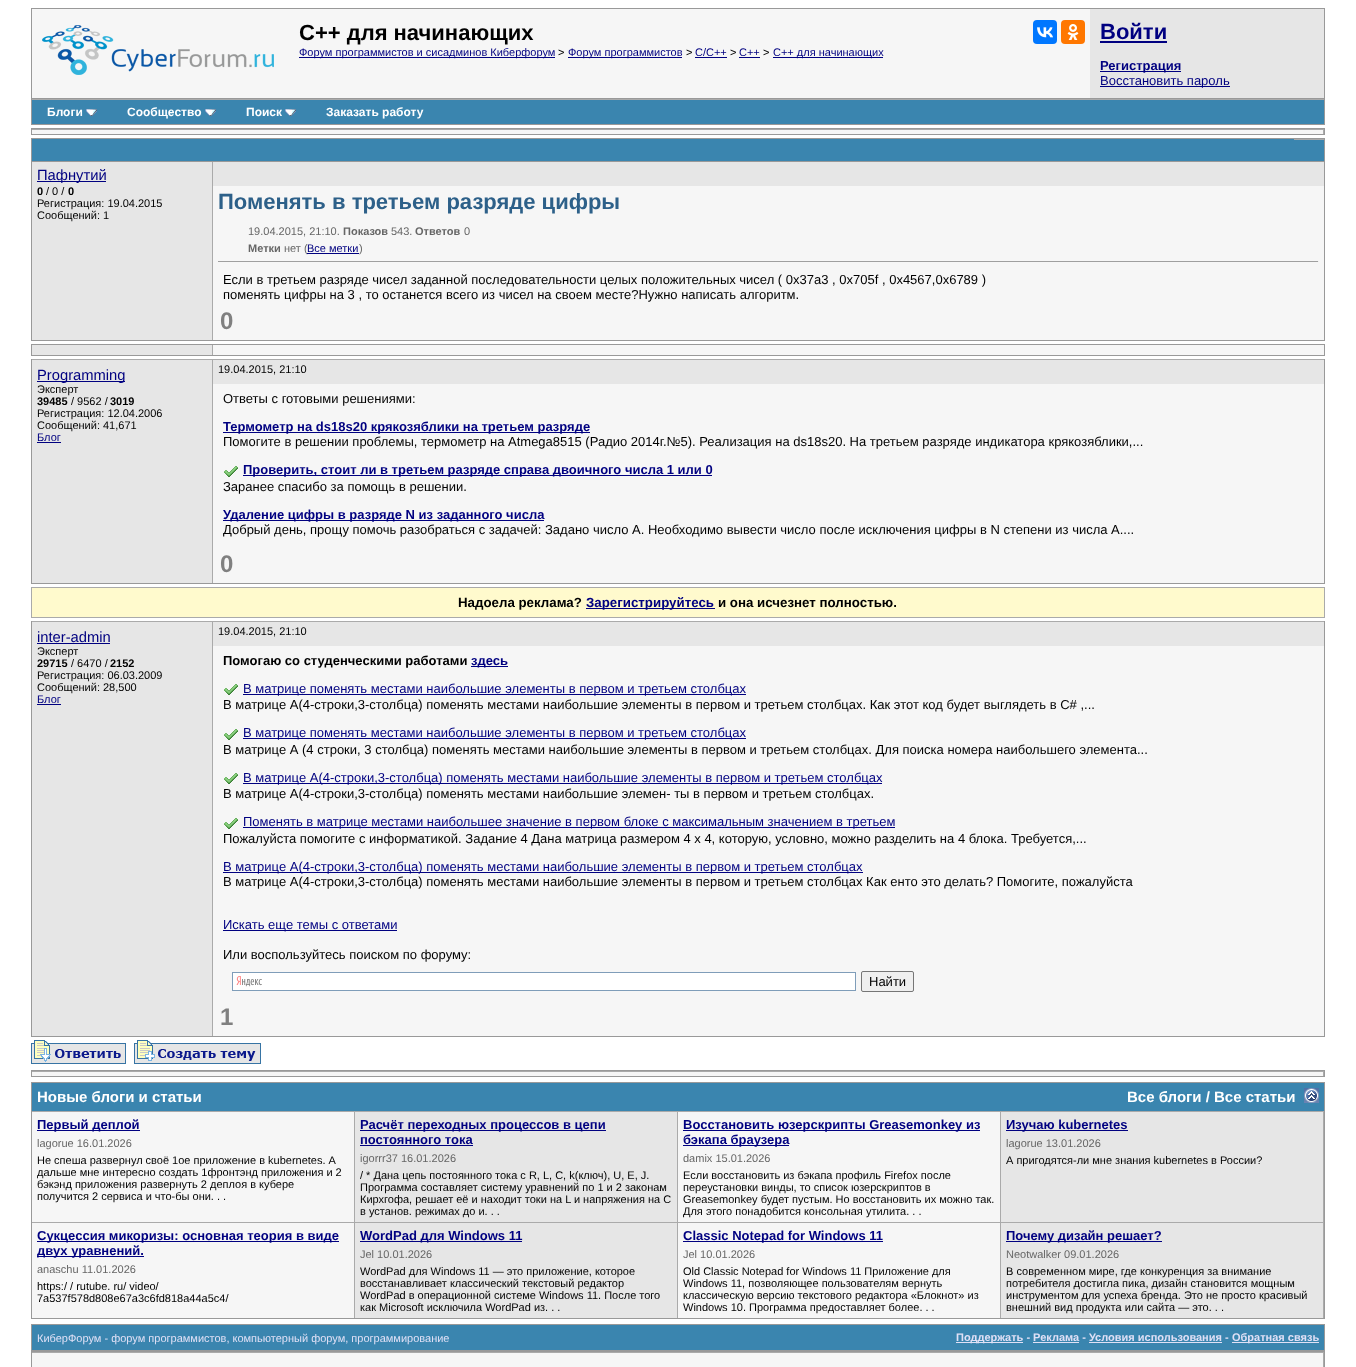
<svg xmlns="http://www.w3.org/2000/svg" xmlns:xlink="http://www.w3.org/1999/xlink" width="1356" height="1367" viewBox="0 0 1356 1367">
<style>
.cls-1{font:bold 22px Liberation Sans;fill:#000000}
.cls-2{font:11px Liberation Sans;fill:#000080}
.cls-3{font:11px Liberation Sans;fill:#000000}
.cls-4{font:bold 22px Liberation Sans;fill:#000080}
.cls-5{font:bold 13px Liberation Sans;fill:#000080}
.cls-6{font:13px Liberation Sans;fill:#000080}
.cls-7{font:bold 12px Liberation Sans;fill:#ffffff}
.cls-8{font:14.75px Liberation Sans;fill:#000080}
.cls-9{font:bold 11px Liberation Sans;fill:#000000}
.cls-10{font:bold 22px Liberation Sans;fill:#2d6089}
.cls-11{font:11px Liberation Sans;fill:#666666}
.cls-12{font:bold 11px Liberation Sans;fill:#666666}
.cls-13{font:13px Liberation Sans;fill:#000000}
.cls-14{font:bold 24px Liberation Sans;letter-spacing:-1px;fill:#808080}
.cls-15{font:bold 13.3px Liberation Sans;fill:#000000}
.cls-16{font:bold 13.3px Liberation Sans;fill:#000080}
.cls-17{font:bold 13px Liberation Sans;fill:#000000}
.cls-18{font:bold 15px Liberation Sans;fill:#ffffff}
.cls-19{font:11px Liberation Sans;fill:#e0e0f6}
.cls-20{font:bold 11px Liberation Sans;fill:#e0e0f6}
</style>
<rect width="100%" height="100%" fill="#ffffff"/>
<rect fill="none" stroke="#999999" x="31.5" y="8.5" width="1293" height="90"/>
<rect fill="#f6f6f6" x="32" y="9" width="1058" height="89"/>
<image xlink:href="image0.png" x="42" y="25" width="232" height="50"/>
<rect fill="#0077ff" x="1033" y="20" width="24" height="24" rx="4"/>
<image xlink:href="image1.png" x="1037" y="27" width="16" height="11"/>
<rect fill="#ff7700" x="1061" y="20" width="24" height="24" rx="4"/>
<image xlink:href="image2.png" x="1067" y="24" width="12" height="16"/>
<rect fill="#000080" x="299" y="57" width="256" height="1"/>
<rect fill="#000080" x="568" y="57" width="114" height="1"/>
<rect fill="#000080" x="695" y="57" width="32" height="1"/>
<rect fill="#000080" x="739" y="57" width="21" height="1"/>
<rect fill="#000080" x="773" y="57" width="110" height="1"/>
<rect fill="#e6e6e6" x="1090" y="9" width="234" height="89"/>
<rect fill="#000080" x="1100" y="41" width="67" height="2"/>
<rect fill="#000080" x="1100" y="71" width="81" height="1"/>
<rect fill="#000080" x="1100" y="86" width="130" height="1"/>
<rect fill="#999999" x="1324" y="99" width="1" height="26"/>
<rect fill="#999999" x="31" y="124" width="1294" height="1"/>
<rect fill="#999999" x="31" y="99" width="1" height="26"/>
<rect fill="#3a85af" x="32" y="100" width="1292" height="24"/>
<rect fill="#aaaaaa" x="32" y="99" width="1292" height="1"/>
<image xlink:href="image3.png" x="86" y="109" width="11" height="7"/>
<image xlink:href="image3.png" x="205" y="109" width="11" height="7"/>
<image xlink:href="image3.png" x="285" y="109" width="11" height="7"/>
<rect fill="none" stroke="#999999" x="31.5" y="128.5" width="1293" height="6"/>
<rect fill="#f6f6f6" x="32" y="130" width="1292" height="4"/>
<rect fill="#aaaaaa" x="32" y="129" width="1292" height="1"/>
<rect fill="#aaaaaa" x="1323" y="129" width="1" height="5"/>
<rect fill="#999999" x="31" y="138" width="1294" height="1"/>
<rect fill="#999999" x="1324" y="138" width="1" height="23"/>
<rect fill="#999999" x="31" y="138" width="1" height="23"/>
<rect fill="#3a85af" x="32" y="139" width="1262" height="22"/>
<rect fill="#3a85af" x="1294" y="140" width="30" height="21"/>
<rect fill="#aaaaaa" x="1294" y="139" width="30" height="1"/>
<rect fill="none" stroke="#999999" x="31.5" y="161.5" width="1293" height="179"/>
<rect fill="#e6e6e6" x="32" y="162" width="180" height="178"/>
<rect fill="#aaaaaa" x="212" y="162" width="1" height="178"/>
<rect fill="#000080" x="37" y="181" width="69" height="1"/>
<rect fill="#e6e6e6" x="213" y="162" width="1111" height="24"/>
<rect fill="#f6f6f6" x="213" y="186" width="1111" height="154"/>
<rect fill="#9f9f9f" x="218" y="261" width="1101" height="1"/>
<rect fill="#eeeeee" x="1318" y="261" width="1" height="1"/>
<rect fill="none" stroke="#999999" x="31.5" y="344.5" width="1293" height="11"/>
<rect fill="#e6e6e6" x="32" y="345" width="180" height="10"/>
<rect fill="#aaaaaa" x="212" y="345" width="1" height="10"/>
<rect fill="#f6f6f6" x="213" y="345" width="1111" height="10"/>
<rect fill="#999999" x="1324" y="359" width="1" height="225"/>
<rect fill="#999999" x="31" y="583" width="1294" height="1"/>
<rect fill="#999999" x="31" y="359" width="1" height="225"/>
<rect fill="#e6e6e6" x="32" y="360" width="180" height="223"/>
<rect fill="#aaaaaa" x="32" y="359" width="1292" height="1"/>
<rect fill="#aaaaaa" x="212" y="359" width="1" height="224"/>
<rect fill="#000080" x="37" y="381" width="88" height="1"/>
<rect fill="#000080" x="37" y="442" width="24" height="1"/>
<rect fill="#e6e6e6" x="213" y="360" width="1111" height="24"/>
<rect fill="#f6f6f6" x="213" y="384" width="1111" height="199"/>
<rect fill="#000080" x="223" y="432" width="367" height="1"/>
<image xlink:href="image4.png" x="224" y="466" width="14" height="11"/>
<rect fill="#000080" x="243" y="475" width="469" height="1"/>
<rect fill="#000080" x="223" y="520" width="321" height="1"/>
<rect fill="#fffacd" stroke="#aaaaaa" x="31.5" y="587.5" width="1293" height="30"/>
<rect fill="#000080" x="586" y="608" width="129" height="1"/>
<rect fill="#999999" x="1324" y="621" width="1" height="416"/>
<rect fill="#999999" x="31" y="1036" width="1294" height="1"/>
<rect fill="#999999" x="31" y="621" width="1" height="416"/>
<rect fill="#e6e6e6" x="32" y="622" width="180" height="414"/>
<rect fill="#aaaaaa" x="32" y="621" width="1292" height="1"/>
<rect fill="#aaaaaa" x="212" y="621" width="1" height="415"/>
<rect fill="#000080" x="37" y="643" width="73" height="1"/>
<rect fill="#000080" x="37" y="704" width="24" height="1"/>
<rect fill="#e6e6e6" x="213" y="622" width="1111" height="24"/>
<rect fill="#f6f6f6" x="213" y="646" width="1111" height="390"/>
<rect fill="#000080" x="471" y="666" width="37" height="1"/>
<image xlink:href="image4.png" x="224" y="684" width="14" height="11"/>
<rect fill="#000080" x="243" y="694" width="503" height="1"/>
<image xlink:href="image4.png" x="224" y="729" width="14" height="11"/>
<rect fill="#000080" x="243" y="738" width="503" height="1"/>
<image xlink:href="image4.png" x="224" y="773" width="14" height="11"/>
<rect fill="#000080" x="243" y="783" width="639" height="1"/>
<image xlink:href="image4.png" x="224" y="818" width="14" height="11"/>
<rect fill="#000080" x="243" y="827" width="652" height="1"/>
<rect fill="#000080" x="223" y="872" width="640" height="1"/>
<rect fill="#000080" x="223" y="930" width="174" height="1"/>
<rect fill="#ffffff" x="233" y="973" width="622" height="17"/>
<image xlink:href="image5.png" x="236" y="976" width="26" height="11"/>
<rect fill="none" stroke="#7f9db9" x="232.5" y="972.5" width="623" height="18"/>
<rect fill="#efefef" stroke="#767676" x="861.5" y="971.5" width="52" height="20" rx="1.5"/>
<image xlink:href="image6.png" x="31" y="1040" width="95" height="24"/>
<image xlink:href="image7.png" x="134" y="1040" width="127" height="24"/>
<rect fill="none" stroke="#999999" x="31.5" y="1070.5" width="1293" height="6"/>
<rect fill="#f6f6f6" x="32" y="1072" width="1292" height="4"/>
<rect fill="#aaaaaa" x="32" y="1071" width="1292" height="1"/>
<rect fill="#aaaaaa" x="1323" y="1071" width="1" height="5"/>
<rect fill="none" stroke="#999999" x="31.5" y="1082.5" width="1293" height="236"/>
<rect fill="#3a85af" x="32" y="1083" width="1292" height="28"/>
<image xlink:href="image8.png" x="1304" y="1088" width="15" height="15"/>
<rect fill="#f6f6f6" x="32" y="1112" width="322" height="110"/>
<rect fill="#aaaaaa" x="32" y="1111" width="1292" height="1"/>
<rect fill="#aaaaaa" x="354" y="1111" width="1" height="111"/>
<rect fill="#000080" x="37" y="1130" width="103" height="1"/>
<rect fill="#e6e6e6" x="355" y="1112" width="322" height="110"/>
<rect fill="#aaaaaa" x="677" y="1111" width="1" height="111"/>
<rect fill="#000080" x="360" y="1130" width="246" height="1"/>
<rect fill="#000080" x="360" y="1145" width="113" height="1"/>
<rect fill="#f6f6f6" x="678" y="1112" width="322" height="110"/>
<rect fill="#aaaaaa" x="1000" y="1111" width="1" height="111"/>
<rect fill="#000080" x="683" y="1130" width="297" height="1"/>
<rect fill="#000080" x="683" y="1145" width="106" height="1"/>
<rect fill="#e6e6e6" x="1001" y="1112" width="322" height="110"/>
<rect fill="#aaaaaa" x="1323" y="1111" width="1" height="111"/>
<rect fill="#000080" x="1006" y="1130" width="122" height="1"/>
<rect fill="#f6f6f6" x="32" y="1223" width="322" height="95"/>
<rect fill="#aaaaaa" x="32" y="1222" width="1292" height="1"/>
<rect fill="#aaaaaa" x="354" y="1222" width="1" height="96"/>
<rect fill="#000080" x="37" y="1241" width="302" height="1"/>
<rect fill="#000080" x="37" y="1256" width="107" height="1"/>
<rect fill="#e6e6e6" x="355" y="1223" width="322" height="95"/>
<rect fill="#aaaaaa" x="677" y="1222" width="1" height="96"/>
<rect fill="#000080" x="360" y="1241" width="162" height="1"/>
<rect fill="#f6f6f6" x="678" y="1223" width="322" height="95"/>
<rect fill="#aaaaaa" x="1000" y="1222" width="1" height="96"/>
<rect fill="#000080" x="683" y="1241" width="200" height="1"/>
<rect fill="#e6e6e6" x="1001" y="1223" width="322" height="95"/>
<rect fill="#aaaaaa" x="1323" y="1222" width="1" height="96"/>
<rect fill="#000080" x="1006" y="1241" width="156" height="1"/>
<rect fill="none" stroke="#999999" x="31.5" y="1324.5" width="1293" height="26"/>
<rect fill="#3a85af" x="32" y="1325" width="1292" height="25"/>
<rect fill="#e0e0f6" x="956" y="1342" width="67" height="1"/>
<rect fill="#e0e0f6" x="1033" y="1342" width="46" height="1"/>
<rect fill="#e0e0f6" x="1089" y="1342" width="133" height="1"/>
<rect fill="#e0e0f6" x="1232" y="1342" width="87" height="1"/>
<rect fill="none" stroke="#999999" x="31.5" y="1351.5" width="1293" height="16"/>
<rect fill="#f6f6f6" x="32" y="1353" width="1291" height="14"/>
<rect fill="#aaaaaa" x="32" y="1352" width="1292" height="1"/>
<rect fill="#aaaaaa" x="1323" y="1352" width="1" height="15"/>
<text class="cls-1" x="299" y="40">С++ для начинающих</text>
<text class="cls-2" x="299" y="56">Форум программистов и сисадминов Киберфорум</text>
<text class="cls-3" x="558" y="56">&gt;</text>
<text class="cls-2" x="568" y="56">Форум программистов</text>
<text class="cls-3" x="686" y="56">&gt;</text>
<text class="cls-2" x="695" y="56">C/C++</text>
<text class="cls-3" x="730" y="56">&gt;</text>
<text class="cls-2" x="739" y="56">C++</text>
<text class="cls-3" x="763" y="56">&gt;</text>
<text class="cls-2" x="773" y="56">С++ для начинающих</text>
<text class="cls-4" x="1100" y="39">Войти</text>
<text class="cls-5" x="1100" y="70">Регистрация</text>
<text class="cls-6" x="1100" y="85">Восстановить пароль</text>
<text class="cls-7" x="47" y="116">Блоги</text>
<text class="cls-7" x="127" y="116">Сообщество</text>
<text class="cls-7" x="246" y="116">Поиск</text>
<text class="cls-7" x="326" y="116">Заказать работу</text>
<text class="cls-8" x="37" y="180">Пафнутий</text>
<text class="cls-9" x="37" y="195">0</text>
<text class="cls-3" x="46" y="195">/ 0 /</text>
<text class="cls-9" x="68" y="195">0</text>
<text class="cls-3"><tspan x="37" y="207">Регистрация: 19.04.2015</tspan><tspan x="37" y="219">Сообщений: 1</tspan></text>
<text class="cls-10" x="218" y="209">Поменять в третьем разряде цифры</text>
<text class="cls-11" x="248" y="235">19.04.2015, 21:10.</text>
<text class="cls-12" x="343" y="235">Показов</text>
<text class="cls-11" x="391" y="235">543.</text>
<text class="cls-12" x="415" y="235">Ответов</text>
<text class="cls-11" x="464" y="235">0</text>
<text class="cls-12" x="248" y="252">Метки</text>
<text class="cls-11" x="284" y="252">нет (</text>
<text class="cls-2" x="307" y="252">Все метки</text>
<rect fill="#000080" x="307" y="253" width="52" height="1"/>
<text class="cls-11" x="359" y="252">)</text>
<text class="cls-13"><tspan x="223" y="284">Если в третьем разряде чисел заданной последовательности целых положительных чисел ( 0x37a3 , 0x705f , 0x4567,0x6789 )</tspan><tspan x="223" y="299">поменять цифры на 3 , то останется всего из чисел на своем месте?Нужно написать алгоритм.</tspan></text>
<text class="cls-14" x="220" y="329">0</text>
<text class="cls-8" x="37" y="380">Programming</text>
<text class="cls-3" x="37" y="393">Эксперт</text>
<text class="cls-9" x="37" y="405">39485</text>
<text class="cls-3" x="71" y="405">/ 9562 /</text>
<text class="cls-9" x="110" y="405">3019</text>
<text class="cls-3"><tspan x="37" y="417">Регистрация: 12.04.2006</tspan><tspan x="37" y="429">Сообщений: 41,671</tspan></text>
<text class="cls-2" x="37" y="441">Блог</text>
<text class="cls-3" x="218" y="373">19.04.2015, 21:10</text>
<text class="cls-13" x="223" y="403">Ответы с готовыми решениями:</text>
<text class="cls-5" x="223" y="431">Термометр на ds18s20 крякозяблики на третьем разряде</text>
<text class="cls-13" x="223" y="446">Помогите в решении проблемы, термометр на Atmega8515 (Радио 2014г.№5). Реализация на ds18s20. На третьем разряде индикатора крякозяблики,...</text>
<text class="cls-5" x="243" y="474">Проверить, стоит ли в третьем разряде справа двоичного числа 1 или 0</text>
<text class="cls-13" x="223" y="491">Заранее спасибо за помощь в решении.</text>
<text class="cls-5" x="223" y="519">Удаление цифры в разряде N из заданного числа</text>
<text class="cls-13" x="223" y="534">Добрый день, прощу помочь разобраться с задачей: Задано число А. Необходимо вывести число после исключения цифры в N степени из числа А....</text>
<text class="cls-14" x="220" y="572">0</text>
<text class="cls-15" x="458" y="607">Надоела реклама?</text>
<text class="cls-16" x="586" y="607">Зарегистрируйтесь</text>
<text class="cls-15" x="718" y="607">и она исчезнет полностью.</text>
<text class="cls-8" x="37" y="642">inter-admin</text>
<text class="cls-3" x="37" y="655">Эксперт</text>
<text class="cls-9" x="37" y="667">29715</text>
<text class="cls-3" x="71" y="667">/ 6470 /</text>
<text class="cls-9" x="110" y="667">2152</text>
<text class="cls-3"><tspan x="37" y="679">Регистрация: 06.03.2009</tspan><tspan x="37" y="691">Сообщений: 28,500</tspan></text>
<text class="cls-2" x="37" y="703">Блог</text>
<text class="cls-3" x="218" y="635">19.04.2015, 21:10</text>
<text class="cls-17" x="223" y="665">Помогаю со студенческими работами</text>
<text class="cls-5" x="471" y="665">здесь</text>
<text class="cls-6" x="243" y="693">В матрице поменять местами наибольшие элементы в первом и третьем столбцах</text>
<text class="cls-13" x="223" y="709">В матрице А(4-строки,3-столбца) поменять местами наибольшие элементы в первом и третьем столбцах. Как этот код будет выглядеть в С# ,...</text>
<text class="cls-6" x="243" y="737">В матрице поменять местами наибольшие элементы в первом и третьем столбцах</text>
<text class="cls-13" x="223" y="754">В матрице А (4 строки, 3 столбца) поменять местами наибольшие элементы в первом и третьем столбцах. Для поиска номера наибольшего элемента...</text>
<text class="cls-6" x="243" y="782">В матрице А(4-строки,3-столбца) поменять местами наибольшие элементы в первом и третьем столбцах</text>
<text class="cls-13" x="223" y="798">В матрице А(4-строки,3-столбца) поменять местами наибольшие элемен- ты в первом и третьем столбцах.</text>
<text class="cls-6" x="243" y="826">Поменять в матрице местами наибольшее значение в первом блоке с максимальным значением в третьем</text>
<text class="cls-13" x="223" y="843">Пожалуйста помогите с информатикой. Задание 4 Дана матрица размером 4 x 4, которую, условно, можно разделить на 4 блока. Требуется,...</text>
<text class="cls-6" x="223" y="871">В матрице А(4-строки,3-столбца) поменять местами наибольшие элементы в первом и третьем столбцах</text>
<text class="cls-13" x="223" y="886">В матрице А(4-строки,3-столбца) поменять местами наибольшие элементы в первом и третьем столбцах Как енто это делать? Помогите, пожалуйста</text>
<text class="cls-6" x="223" y="929">Искать еще темы с ответами</text>
<text class="cls-13" x="223" y="959">Или воспользуйтесь поиском по форуму:</text>
<text class="cls-13" x="869" y="986">Найти</text>
<text class="cls-14" x="220" y="1025">1</text>
<text class="cls-18" x="37" y="1102">Новые блоги и статьи</text>
<text class="cls-18" x="1127" y="1102">Все блоги /</text>
<text class="cls-18" x="1214" y="1102">Все статьи</text>
<text class="cls-5" x="37" y="1129">Первый деплой</text>
<text class="cls-11" x="37" y="1147">lagorue 16.01.2026</text>
<text class="cls-3"><tspan x="37" y="1164">Не спеша развернул своё 1ое приложение в kubernetes. А</tspan><tspan x="37" y="1176">дальше мне интересно создать 1фронтэнд приложения и 2</tspan><tspan x="37" y="1188">бэкэнд приложения развернуть 2 деплоя в кубере</tspan><tspan x="37" y="1200">получится 2 сервиса и что-бы они. . .</tspan></text>
<text class="cls-5"><tspan x="360" y="1129">Расчёт переходных процессов в цепи</tspan><tspan x="360" y="1144">постоянного тока</tspan></text>
<text class="cls-11" x="360" y="1162">igorrr37 16.01.2026</text>
<text class="cls-3"><tspan x="360" y="1179">/ * Дана цепь постоянного тока с R, L, C, k(ключ), U, E, J.</tspan><tspan x="360" y="1191">Программа составляет систему уравнений по 1 и 2 законам</tspan><tspan x="360" y="1203">Кирхгофа, решает её и находит токи на L и напряжения на C</tspan><tspan x="360" y="1215">в установ. режимах до и. . .</tspan></text>
<text class="cls-5"><tspan x="683" y="1129">Восстановить юзерскрипты Greasemonkey из</tspan><tspan x="683" y="1144">бэкапа браузера</tspan></text>
<text class="cls-11" x="683" y="1162">damix 15.01.2026</text>
<text class="cls-3"><tspan x="683" y="1179">Если восстановить из бэкапа профиль Firefox после</tspan><tspan x="683" y="1191">переустановки винды, то список юзерскриптов в</tspan><tspan x="683" y="1203">Greasemonkey будет пустым. Но восстановить их можно так.</tspan><tspan x="683" y="1215">Для этого понадобится консольная утилита. . .</tspan></text>
<text class="cls-5" x="1006" y="1129">Изучаю kubernetes</text>
<text class="cls-11" x="1006" y="1147">lagorue 13.01.2026</text>
<text class="cls-3" x="1006" y="1164">А пригодятся-ли мне знания kubernetes в России?</text>
<text class="cls-5"><tspan x="37" y="1240">Сукцессия микоризы: основная теория в виде</tspan><tspan x="37" y="1255">двух уравнений.</tspan></text>
<text class="cls-11" x="37" y="1273">anaschu 11.01.2026</text>
<text class="cls-3"><tspan x="37" y="1290">https:/ / rutube. ru/ video/</tspan><tspan x="37" y="1302">7a537f578d808e67a3c6fd818a44a5c4/</tspan></text>
<text class="cls-5" x="360" y="1240">WordPad для Windows 11</text>
<text class="cls-11" x="360" y="1258">Jel 10.01.2026</text>
<text class="cls-3"><tspan x="360" y="1275">WordPad для Windows 11 — это приложение, которое</tspan><tspan x="360" y="1287">восстанавливает классический текстовый редактор</tspan><tspan x="360" y="1299">WordPad в операционной системе Windows 11. После того</tspan><tspan x="360" y="1311">как Microsoft исключила WordPad из. . .</tspan></text>
<text class="cls-5" x="683" y="1240">Classic Notepad for Windows 11</text>
<text class="cls-11" x="683" y="1258">Jel 10.01.2026</text>
<text class="cls-3"><tspan x="683" y="1275">Old Classic Notepad for Windows 11 Приложение для</tspan><tspan x="683" y="1287">Windows 11, позволяющее пользователям вернуть</tspan><tspan x="683" y="1299">классическую версию текстового редактора «Блокнот» из</tspan><tspan x="683" y="1311">Windows 10. Программа предоставляет более. . .</tspan></text>
<text class="cls-5" x="1006" y="1240">Почему дизайн решает?</text>
<text class="cls-11" x="1006" y="1258">Neotwalker 09.01.2026</text>
<text class="cls-3"><tspan x="1006" y="1275">В современном мире, где конкуренция за внимание</tspan><tspan x="1006" y="1287">потребителя достигла пика, дизайн становится мощным</tspan><tspan x="1006" y="1299">инструментом для успеха бренда. Это не просто красивый</tspan><tspan x="1006" y="1311">внешний вид продукта или сайта — это. . .</tspan></text>
<text class="cls-19" x="37" y="1342">КиберФорум - форум программистов, компьютерный форум, программирование</text>
<text class="cls-20" x="956" y="1341">Поддержать - Реклама - Условия использования -</text>
<text class="cls-20" x="1232" y="1341">Обратная связь</text>
</svg>
